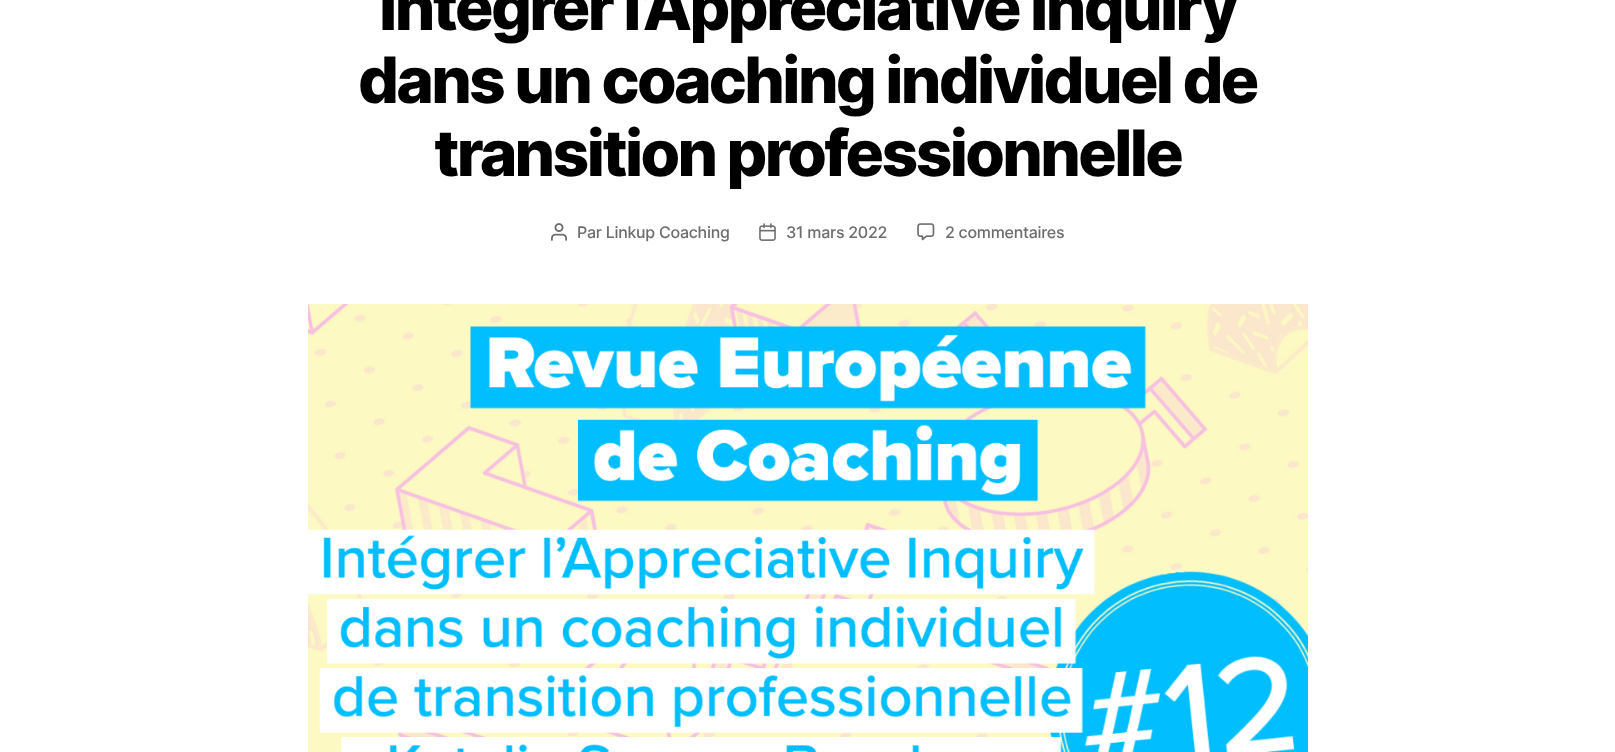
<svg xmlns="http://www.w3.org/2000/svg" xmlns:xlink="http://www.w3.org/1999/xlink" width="1615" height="752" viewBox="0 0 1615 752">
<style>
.cls-1{font:800 64px Inter;letter-spacing:-2.65px;fill:#000000}
.cls-2{font:500 16px Inter;letter-spacing:-0.25px;fill:#6d6d6d}
</style>
<rect width="100%" height="100%" fill="#ffffff"/>
<image xlink:href="image0.png" x="551" y="223" width="16" height="18"/>
<image xlink:href="image1.png" x="759" y="223" width="17" height="18"/>
<image xlink:href="image2.png" x="917" y="223" width="18" height="18"/>
<image xlink:href="image3.png" x="308" y="304" width="1000" height="448"/>
<text class="cls-1" x="379" y="30">Intégrer l’Appreciative Inquiry</text>
<text class="cls-1" x="358" y="103">dans un coaching individuel de</text>
<text class="cls-1" x="434" y="176">transition professionnelle</text>
<text class="cls-2" x="577" y="238">Par Linkup Coaching</text>
<text class="cls-2" x="786" y="238">31 mars 2022</text>
<text class="cls-2" x="945" y="238">2 commentaires</text>
</svg>
